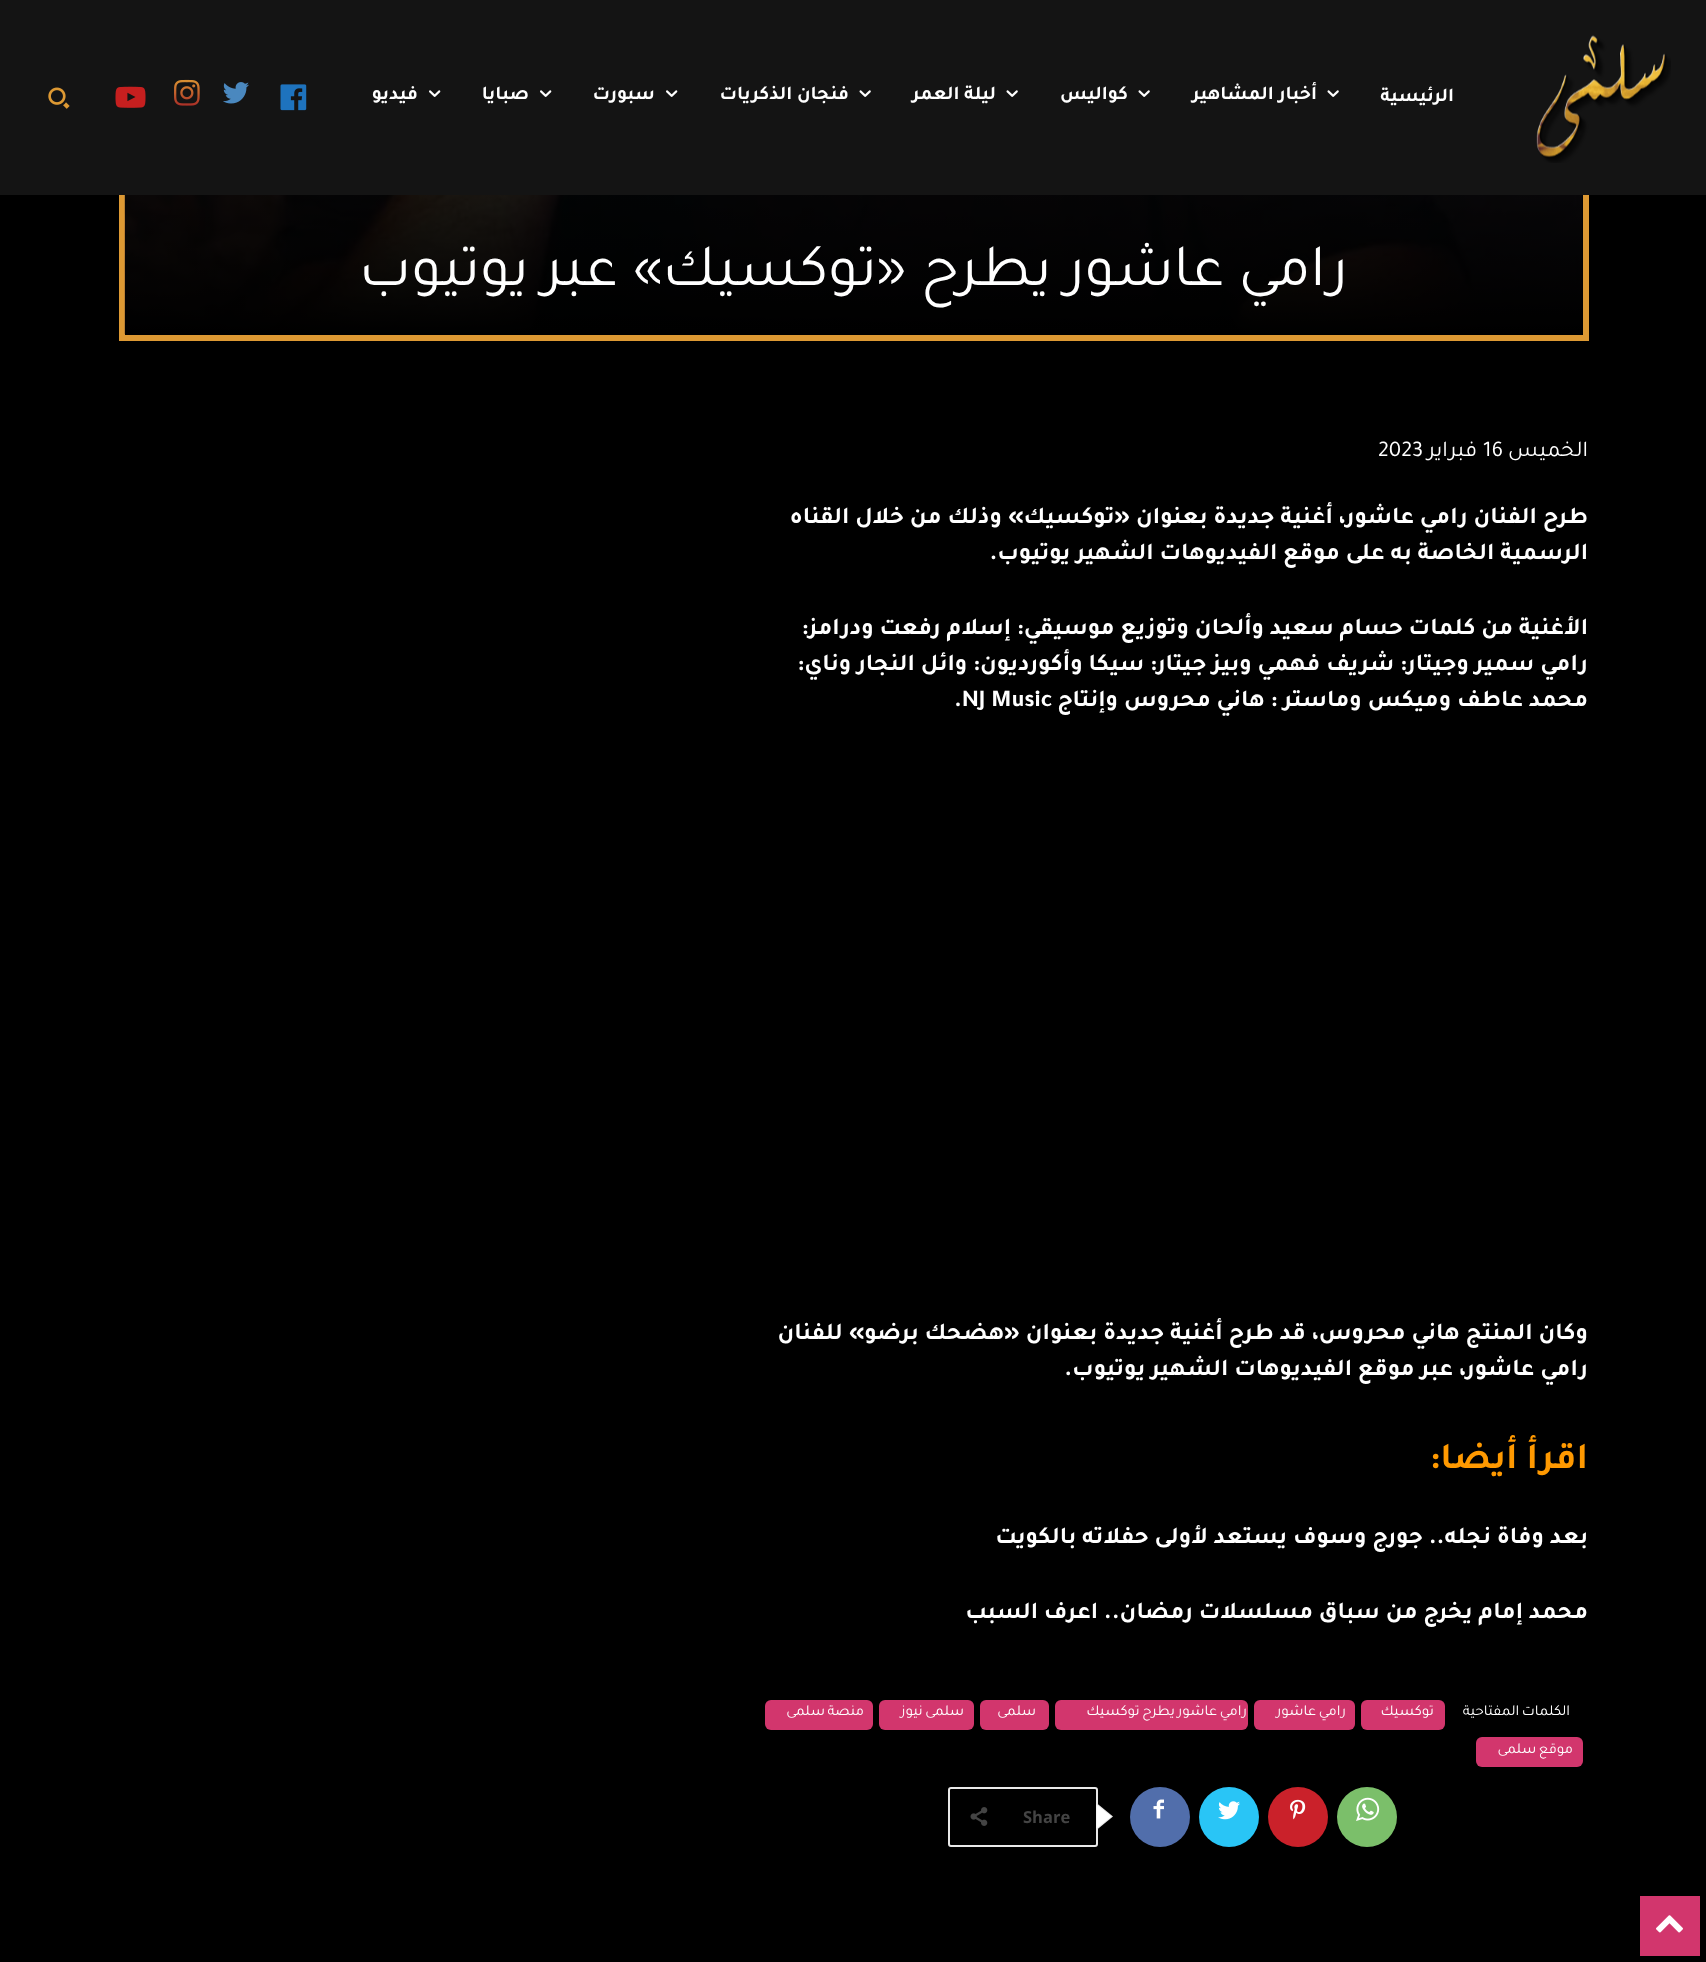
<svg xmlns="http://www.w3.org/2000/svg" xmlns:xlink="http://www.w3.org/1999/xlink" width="1706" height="1962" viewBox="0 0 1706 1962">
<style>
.cls-1{font:bold 19.5px Tajawal;direction:rtl;fill:#ffffff}
.cls-2{font:60px Tajawal;direction:rtl;fill:#ffffff}
.cls-3{font:22.5px Tajawal;direction:rtl;fill:#ffffff}
.cls-4{font:22.5px Tajawal;fill:#ffffff}
.cls-5{font:bold 24px Tajawal;direction:rtl;fill:#ffffff}
.cls-6{font:bold 24px Tajawal;fill:#ffffff}
.cls-7{font:bold 37.5px Tajawal;direction:rtl;fill:#ff9900}
.cls-8{font:15px Tajawal;letter-spacing:0.75px;direction:rtl;fill:#ffffff}
.cls-9{font:bold 16.5px Open Sans;fill:#444444}
</style>
<defs>
<linearGradient id="g1" gradientUnits="userSpaceOnUse" x1="854" y1="-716" x2="854" y2="335"><stop offset="0" stop-color="#000000" stop-opacity="0"/><stop offset="1" stop-color="#000000"/></linearGradient>
</defs>
<rect width="100%" height="100%" fill="#000000"/>
<rect fill="none" stroke="#dd9933" stroke-width="6" x="122" y="-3" width="1464" height="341"/>
<rect fill="#141414" x="0" y="0" width="1706" height="195"/>
<image xlink:href="image0.png" x="1536" y="35" width="135" height="128"/>
<image xlink:href="image1.png" x="1327" y="90" width="12" height="7"/>
<image xlink:href="image1.png" x="1138" y="90" width="12" height="7"/>
<image xlink:href="image1.png" x="1006" y="90" width="12" height="7"/>
<image xlink:href="image1.png" x="859" y="90" width="12" height="7"/>
<image xlink:href="image2.png" x="666" y="90" width="12" height="7"/>
<image xlink:href="image2.png" x="540" y="90" width="12" height="7"/>
<image xlink:href="image2.png" x="429" y="90" width="12" height="7"/>
<image xlink:href="image3.png" x="280" y="84" width="27" height="27"/>
<image xlink:href="image4.png" x="223" y="82" width="26" height="22"/>
<image xlink:href="image5.png" x="174" y="79" width="26" height="27"/>
<image xlink:href="image6.png" x="115" y="86" width="31" height="22"/>
<image xlink:href="image7.png" x="48" y="87" width="22" height="22"/>
<image xlink:href="image8.png" x="124" y="195" width="1459" height="139"/>
<rect fill="url(#g1)" x="125" y="195" width="1458" height="139"/>
<rect fill="#d2366d" x="1361" y="1700" width="84" height="30" rx="6"/>
<rect fill="#d2366d" x="1254" y="1700" width="101" height="30" rx="6"/>
<rect fill="#d2366d" x="1055" y="1700" width="193" height="30" rx="6"/>
<rect fill="#d2366d" x="980" y="1700" width="69" height="30" rx="6"/>
<rect fill="#d2366d" x="879" y="1700" width="95" height="30" rx="6"/>
<rect fill="#d2366d" x="765" y="1700" width="108" height="30" rx="6"/>
<rect fill="#d2366d" x="1476" y="1737" width="107" height="30" rx="6"/>
<circle fill="#7bbf6a" cx="1367" cy="1817" r="30"/>
<image xlink:href="image9.png" x="1356" y="1797" width="24" height="24"/>
<circle fill="#ca212a" cx="1298" cy="1817" r="30"/>
<image xlink:href="image10.png" x="1290" y="1799" width="16" height="21"/>
<circle fill="#29c5f6" cx="1229" cy="1817" r="30"/>
<image xlink:href="image11.png" x="1218" y="1801" width="22" height="19"/>
<circle fill="#516eab" cx="1160" cy="1817" r="30"/>
<image xlink:href="image12.png" x="1153" y="1799" width="11" height="20"/>
<rect fill="none" stroke="#e9e9e9" stroke-width="2" x="949" y="1788" width="148" height="58" rx="2"/>
<path fill="#e9e9e9" d="M1096.5 1830V1803L1113 1816.5Z"/>
<path fill="#ffffff" d="M1096.5 1828.5V1804.5L1111.5 1816.5Z"/>
<image xlink:href="image13.png" x="970" y="1807" width="18" height="19"/>
<rect fill="#d2366d" x="1640" y="1896" width="60" height="60"/>
<image xlink:href="image14.png" x="1656" y="1915" width="27" height="18"/>
<text class="cls-1" x="1454" y="101">الرئيسية</text>
<text class="cls-1" x="1317" y="99">أخبار المشاهير</text>
<text class="cls-1" x="1128" y="99">كواليس</text>
<text class="cls-1" x="996" y="99">ليلة العمر</text>
<text class="cls-1" x="849" y="99">فنجان الذكريات</text>
<text class="cls-1" x="655" y="99">سبورت</text>
<text class="cls-1" x="529" y="99">صبايا</text>
<text class="cls-1" x="418" y="99">فيديو</text>
<text class="cls-2" x="1348" y="285">رامي عاشور يطرح «توكسيك» عبر يوتيوب</text>
<text class="cls-3" x="1588" y="456">الخميس</text>
<text class="cls-4" x="1483" y="456">16</text>
<text class="cls-3" x="1477" y="456">فبراير</text>
<text class="cls-4" x="1378" y="456">2023</text>
<text class="cls-5"><tspan x="1588" y="523">طرح الفنان رامي عاشور، أغنية جديدة بعنوان «توكسيك» وذلك من خلال القناه</tspan><tspan x="1588" y="559">الرسمية الخاصة به على موقع الفيديوهات الشهير يوتيوب.</tspan></text>
<text class="cls-5"><tspan x="1588" y="634">الأغنية من كلمات حسام سعيد وألحان وتوزيع موسيقي: إسلام رفعت ودرامز:</tspan><tspan x="1588" y="670">رامي سمير وجيتار: شريف فهمي وبيز جيتار: سيكا وأكورديون: وائل النجار وناي:</tspan><tspan x="1588" y="706">محمد عاطف وميكس وماستر : هاني محروس وإنتاج</tspan></text>
<text class="cls-6" x="954" y="706">.NJ Music</text>
<text class="cls-5"><tspan x="1588" y="1339">وكان المنتج هاني محروس، قد طرح أغنية جديدة بعنوان «هضحك برضو» للفنان</tspan><tspan x="1588" y="1375">رامي عاشور، عبر موقع الفيديوهات الشهير يوتيوب.</tspan></text>
<text class="cls-7" x="1588" y="1468">اقرأ أيضا:</text>
<text class="cls-5" x="1588" y="1543">بعد وفاة نجله.. جورج وسوف يستعد لأولى حفلاته بالكويت</text>
<text class="cls-5" x="1588" y="1618">محمد إمام يخرج من سباق مسلسلات رمضان.. اعرف السبب</text>
<text class="cls-8" x="1570" y="1715" word-spacing="-1">الكلمات المفتاحية</text>
<text class="cls-8" x="1434" y="1715">توكسيك</text>
<text class="cls-8" x="1346" y="1715" word-spacing="-1">رامي عاشور</text>
<text class="cls-8" x="1247" y="1715" word-spacing="-1">رامي عاشور يطرح توكسيك</text>
<text class="cls-8" x="1036" y="1715">سلمى</text>
<text class="cls-8" x="964" y="1715" word-spacing="-1">سلمى نيوز</text>
<text class="cls-8" x="864" y="1715" word-spacing="-1">منصة سلمى</text>
<text class="cls-8" x="1573" y="1753" word-spacing="-1">موقع سلمى</text>
<text class="cls-9" x="1023" y="1823">Share</text>
</svg>
